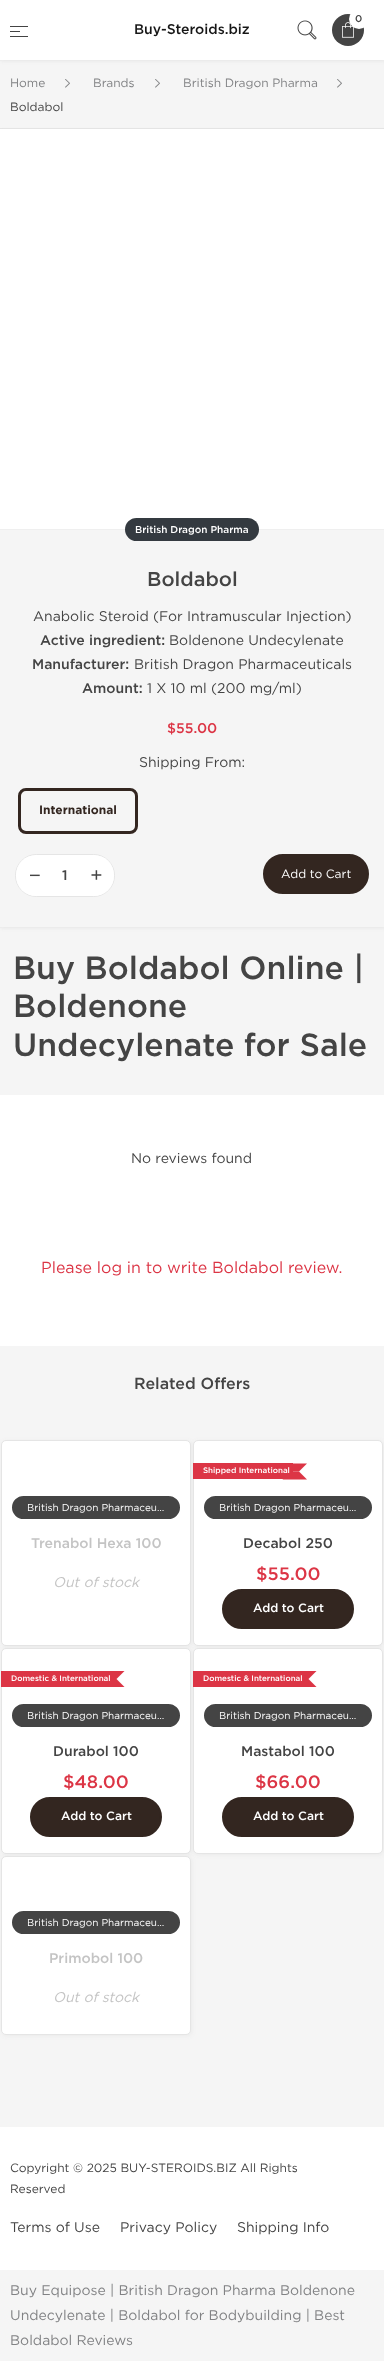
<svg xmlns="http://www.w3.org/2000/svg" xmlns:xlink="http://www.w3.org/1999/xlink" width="384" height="2361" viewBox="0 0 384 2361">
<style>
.cls-1{font:500 10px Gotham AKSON;fill:#444444}
.cls-2{font:500 14px Gotham AKSON;fill:#161616}
.cls-3{font:12px Gotham AKSON;fill:#818284}
.cls-4{font:12px Gotham AKSON;fill:#444444}
.cls-5{font:500 10px Gotham AKSON;fill:#ffffff}
.cls-6{font:500 20px Gotham AKSON;fill:#444444}
.cls-7{font:14px Gotham AKSON;fill:#444444}
.cls-8{font:500 14px Gotham AKSON;fill:#444444}
.cls-9{font:500 14px Gotham AKSON;fill:#dc3545}
.cls-10{font:bold 12px Gotham AKSON;fill:#332620}
.cls-11{font:20px Liberation Sans;fill:#444444}
.cls-12{font:20px Gotham AKSON;fill:#444444}
.cls-13{font:12px Gotham AKSON;fill:#ffffff}
.cls-14{font:500 32px Gotham AKSON;fill:#444444}
.cls-15{font:16px Gotham AKSON;fill:#dc3545}
.cls-16{font:500 16px Gotham AKSON;fill:#444444}
.cls-17{font:10px Gotham AKSON;fill:#ffffff}
.cls-18{font:500 14px Gotham AKSON;fill:#c4c4c4}
.cls-19{font:italic 14px Gotham AKSON;fill:#c4c4c4}
.cls-20{font:500 8px Gotham AKSON;fill:#ffffff}
.cls-21{font:500 18px Gotham AKSON;fill:#dc3545}
.cls-22{font:500 12px Gotham AKSON;fill:#ffffff}
.cls-23{font:14px Gotham AKSON;fill:#818284}
</style>
<rect width="100%" height="100%" fill="#f5f5f5"/>
<rect fill="#444444" fill-opacity="0.06" filter="blur(1.5px)" x="1" y="1" width="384" height="61"/>
<rect fill="#ffffff" x="0" y="0" width="384" height="60"/>
<rect fill="#ececec" x="0" y="60" width="2" height="1"/>
<circle fill="#444444" cx="348" cy="30" r="16"/>
<image xlink:href="image0.png" x="342" y="22" width="12" height="16"/>
<circle fill="#ffffff" cx="359" cy="19" r="10"/>
<image xlink:href="image1.png" x="297" y="20" width="20" height="20"/>
<image xlink:href="image2.png" x="10" y="26" width="18" height="11"/>
<rect fill="#e5e5e5" x="0" y="128" width="384" height="1"/>
<image xlink:href="image3.png" x="65" y="79" width="5" height="9"/>
<image xlink:href="image3.png" x="155" y="79" width="5" height="9"/>
<image xlink:href="image3.png" x="337" y="79" width="5" height="9"/>
<rect fill="#444444" fill-opacity="0.06" filter="blur(1.5px)" x="1" y="130" width="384" height="799"/>
<rect fill="#ececec" x="0" y="927" width="2" height="1"/>
<rect fill="#ffffff" x="0" y="129" width="384" height="400"/>
<rect fill="#f5f5f5" x="0" y="530" width="384" height="397"/>
<rect fill="#efefef" x="0" y="529" width="384" height="1"/>
<rect fill="#343a40" x="125" y="518" width="134" height="23" rx="11.5"/>
<rect fill="none" stroke="#332620" stroke-width="3" x="19.5" y="789.5" width="117" height="43" rx="6.5"/>
<rect fill="none" stroke="#e5e5e5" x="15.5" y="854.5" width="99" height="42" rx="21"/>
<rect fill="#ffffff" x="16" y="855" width="98" height="41" rx="20"/>
<rect fill="#332620" stroke="#332620" stroke-width="2" x="264" y="855" width="104" height="38" rx="19"/>
<rect fill="#ffffff" x="0" y="1095" width="384" height="251"/>
<rect fill="#444444" fill-opacity="0.06" filter="blur(2.5px)" x="2" y="1441" width="190" height="206" rx="5"/>
<rect fill="#ffffff" stroke="#e5e5e5" x="1.5" y="1440.5" width="189" height="205" rx="4.5"/>
<rect fill="#444444" stroke="#ffffff" stroke-width="10" x="7" y="1491" width="178" height="33" rx="16.5"/>
<rect fill="#444444" fill-opacity="0.06" filter="blur(2.5px)" x="194" y="1441" width="190" height="206" rx="5"/>
<rect fill="#ffffff" stroke="#e5e5e5" x="193.5" y="1440.5" width="189" height="205" rx="4.5"/>
<rect fill="#dc3545" x="193" y="1463" width="100" height="16"/>
<path fill="#dc3545" d="M283 1463.5H307L299 1471.5H275Z"/>
<path fill="#dc3545" d="M275 1471.5H299L307 1479.5H283Z"/>
<rect fill="#444444" stroke="#ffffff" stroke-width="10" x="199" y="1491" width="178" height="33" rx="16.5"/>
<rect fill="#332620" stroke="#332620" stroke-width="2" x="223" y="1590" width="130" height="38" rx="19"/>
<rect fill="#444444" fill-opacity="0.06" filter="blur(2.5px)" x="2" y="1649" width="190" height="206" rx="5"/>
<rect fill="#ffffff" stroke="#e5e5e5" x="1.5" y="1648.5" width="189" height="205" rx="4.5"/>
<rect fill="#dc3545" x="1" y="1671" width="100" height="16"/>
<path fill="#dc3545" d="M100.5 1671H124.5L116.5 1679H92.5ZM92.5 1679H116.5L124.5 1687H100.5Z"/>
<rect fill="#444444" stroke="#ffffff" stroke-width="10" x="7" y="1699" width="178" height="33" rx="16.5"/>
<rect fill="#332620" stroke="#332620" stroke-width="2" x="31" y="1798" width="130" height="38" rx="19"/>
<rect fill="#444444" fill-opacity="0.06" filter="blur(2.5px)" x="194" y="1649" width="190" height="206" rx="5"/>
<rect fill="#ffffff" stroke="#e5e5e5" x="193.5" y="1648.5" width="189" height="205" rx="4.5"/>
<rect fill="#dc3545" x="193" y="1671" width="100" height="16"/>
<path fill="#dc3545" d="M292.5 1671H316.5L308.5 1679H284.5ZM284.5 1679H308.5L316.5 1687H292.5Z"/>
<rect fill="#444444" stroke="#ffffff" stroke-width="10" x="199" y="1699" width="178" height="33" rx="16.5"/>
<rect fill="#332620" stroke="#332620" stroke-width="2" x="223" y="1798" width="130" height="38" rx="19"/>
<rect fill="#444444" fill-opacity="0.06" filter="blur(2.5px)" x="2" y="1857" width="190" height="179" rx="5"/>
<rect fill="#ffffff" stroke="#e5e5e5" x="1.5" y="1856.5" width="189" height="178" rx="4.5"/>
<rect fill="#444444" stroke="#ffffff" stroke-width="10" x="7" y="1906" width="178" height="33" rx="16.5"/>
<rect fill="#ffffff" x="0" y="2127" width="384" height="143"/>
<text class="cls-1" x="355" y="22">0</text>
<text class="cls-2" x="134" y="34">Buy-Steroids.biz</text>
<text class="cls-3" x="10" y="87">Home</text>
<text class="cls-3" x="93" y="87">Brands</text>
<text class="cls-3" x="183" y="87">British Dragon Pharma</text>
<text class="cls-4" x="10" y="111">Boldabol</text>
<text class="cls-5" x="135" y="533">British Dragon Pharma</text>
<text class="cls-6" x="147" y="586">Boldabol</text>
<text class="cls-7" x="33" y="621">Anabolic Steroid (For Intramuscular Injection)</text>
<text class="cls-8" x="40" y="645">Active ingredient:</text>
<text class="cls-7" x="169" y="645">Boldenone Undecylenate</text>
<text class="cls-8" x="32" y="669">Manufacturer:</text>
<text class="cls-7" x="134" y="669">British Dragon Pharmaceuticals</text>
<text class="cls-8" x="82" y="693">Amount:</text>
<text class="cls-7" x="147" y="693">1 X 10 ml (200 mg/ml)</text>
<text class="cls-9" x="167" y="733">$55.00</text>
<text class="cls-7" x="139" y="767">Shipping From:</text>
<text class="cls-10" x="39" y="814">International</text>
<text class="cls-11" x="29" y="882">−</text>
<text class="cls-8" x="62" y="880">1</text>
<text class="cls-12" x="90" y="882">+</text>
<text class="cls-13" x="281" y="878">Add to Cart</text>
<text class="cls-14"><tspan x="13" y="979">Buy Boldabol Online |</tspan><tspan x="13" y="1017">Boldenone</tspan><tspan x="13" y="1056">Undecylenate for Sale</tspan></text>
<text class="cls-7" x="131" y="1163">No reviews found</text>
<text class="cls-15" x="41" y="1273">Please log in to write Boldabol review.</text>
<text class="cls-16" x="134" y="1389">Related Offers</text>
<text class="cls-17" x="27" y="1511">British Dragon Pharmaceu…</text>
<text class="cls-18" x="31" y="1548">Trenabol Hexa 100</text>
<text class="cls-19" x="53" y="1587">Out of stock</text>
<text class="cls-20" x="203" y="1473">Shipped International</text>
<text class="cls-17" x="219" y="1511">British Dragon Pharmaceu…</text>
<text class="cls-8" x="243" y="1548">Decabol 250</text>
<text class="cls-21" x="256" y="1580">$55.00</text>
<text class="cls-22" x="253" y="1612">Add to Cart</text>
<text class="cls-20" x="11" y="1681">Domestic &amp; International</text>
<text class="cls-17" x="27" y="1719">British Dragon Pharmaceu…</text>
<text class="cls-8" x="53" y="1756">Durabol 100</text>
<text class="cls-21" x="63" y="1788">$48.00</text>
<text class="cls-22" x="61" y="1820">Add to Cart</text>
<text class="cls-20" x="203" y="1681">Domestic &amp; International</text>
<text class="cls-17" x="219" y="1719">British Dragon Pharmaceu…</text>
<text class="cls-8" x="241" y="1756">Mastabol 100</text>
<text class="cls-21" x="255" y="1788">$66.00</text>
<text class="cls-22" x="253" y="1820">Add to Cart</text>
<text class="cls-17" x="27" y="1926">British Dragon Pharmaceu…</text>
<text class="cls-18" x="49" y="1963">Primobol 100</text>
<text class="cls-19" x="53" y="2002">Out of stock</text>
<text class="cls-4"><tspan x="10" y="2172">Copyright © 2025 BUY-STEROIDS.BIZ All Rights</tspan><tspan x="10" y="2193">Reserved</tspan></text>
<text class="cls-7" x="10" y="2232">Terms of Use</text>
<text class="cls-7" x="120" y="2232">Privacy Policy</text>
<text class="cls-7" x="237" y="2232">Shipping Info</text>
<text class="cls-23"><tspan x="10" y="2295">Buy Equipose | British Dragon Pharma Boldenone</tspan><tspan x="10" y="2320">Undecylenate | Boldabol for Bodybuilding | Best</tspan><tspan x="10" y="2345">Boldabol Reviews</tspan></text>
</svg>
